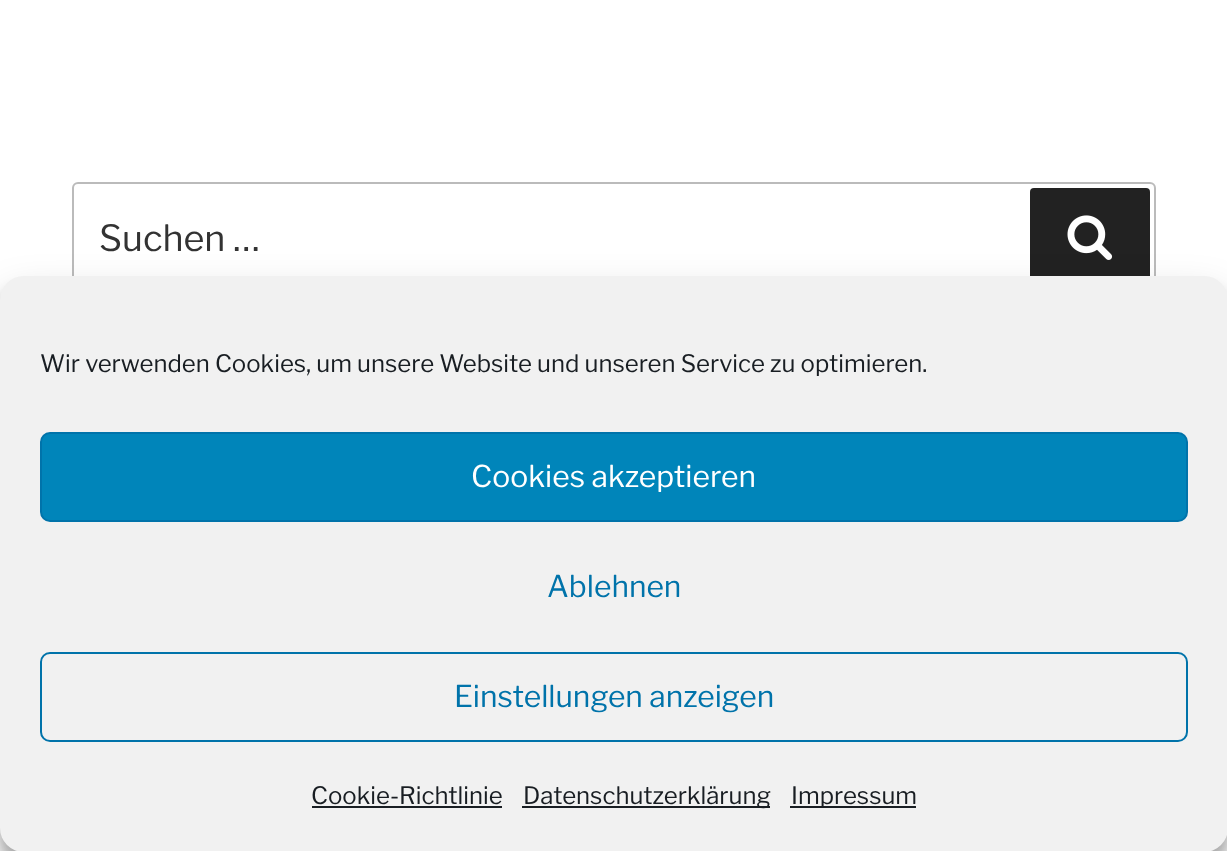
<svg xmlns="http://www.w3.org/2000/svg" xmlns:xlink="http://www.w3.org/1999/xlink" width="1227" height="851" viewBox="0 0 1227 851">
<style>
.cls-1{font:100 36px Libre Franklin;fill:#333333}
.cls-2{font:100 24px Libre Franklin;fill:#191e23}
.cls-3{font:100 30px Libre Franklin;fill:#ffffff}
.cls-4{font:100 30px Libre Franklin;fill:#0073aa}
</style>
<rect width="100%" height="100%" fill="#ffffff"/>
<rect fill="none" stroke="#bbbbbb" stroke-width="2" x="73" y="183" width="1082" height="112" rx="5"/>
<rect fill="#222222" x="1030" y="188" width="120" height="102" rx="4"/>
<image xlink:href="image0.png" x="1067" y="215" width="46" height="45"/>
<rect fill="#000000" fill-opacity="0.23" filter="blur(6px)" x="0" y="288" width="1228" height="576" rx="24"/>
<rect fill="#000000" fill-opacity="0.19" filter="blur(20px)" x="0" y="296" width="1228" height="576" rx="24"/>
<rect fill="#f1f1f1" x="0" y="276" width="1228" height="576" rx="24"/>
<rect fill="#0085ba" stroke="#0073aa" stroke-width="2" x="41" y="433" width="1146" height="88" rx="9"/>
<rect fill="none" stroke="#0073aa" stroke-width="2" x="41" y="653" width="1146" height="88" rx="9"/>
<rect fill="#191e23" x="312" y="806" width="190" height="2"/>
<rect fill="#191e23" x="522" y="806" width="248" height="2"/>
<rect fill="#191e23" x="790" y="806" width="126" height="2"/>
<text class="cls-1" x="99" y="251">Suchen …</text>
<text class="cls-2" x="40" y="372">Wir verwenden Cookies, um unsere Website und unseren Service zu optimieren.</text>
<text class="cls-3" x="471" y="487">Cookies akzeptieren</text>
<text class="cls-4" x="547" y="597">Ablehnen</text>
<text class="cls-4" x="454" y="707">Einstellungen anzeigen</text>
<text class="cls-2" x="311" y="804">Cookie-Richtlinie</text>
<text class="cls-2" x="523" y="804">Datenschutzerklärung</text>
<text class="cls-2" x="791" y="804">Impressum</text>
</svg>
